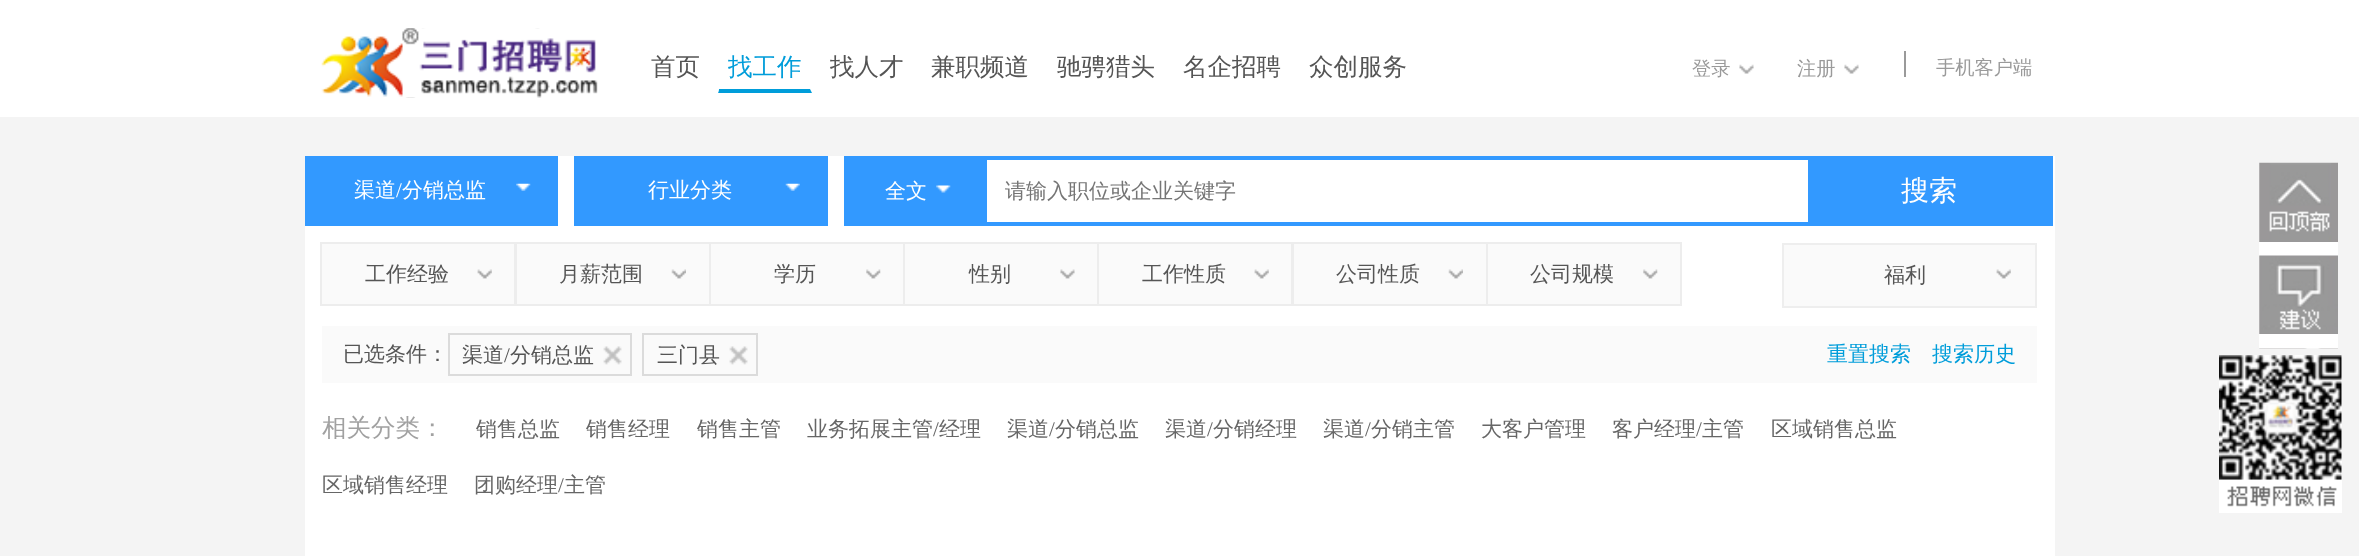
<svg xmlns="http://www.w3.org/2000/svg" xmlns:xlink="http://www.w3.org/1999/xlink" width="2359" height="556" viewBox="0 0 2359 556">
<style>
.cls-1{font:500 24.5px WenQuanYi Zen Hei;fill:#555555}
.cls-2{font:500 24.5px WenQuanYi Zen Hei;fill:#009dda}
.cls-3{font:500 19.25px WenQuanYi Zen Hei;fill:#9a9a9a}
.cls-4{font:500 21px WenQuanYi Zen Hei;fill:#ffffff}
.cls-5{font:21px Liberation Serif;fill:#ffffff}
.cls-6{font:500 21px WenQuanYi Zen Hei;fill:#757575}
.cls-7{font:500 28px WenQuanYi Zen Hei;fill:#ffffff}
.cls-8{font:500 21px WenQuanYi Zen Hei;fill:#555555}
.cls-9{font:21px Liberation Serif;fill:#555555}
.cls-10{font:500 21px WenQuanYi Zen Hei;fill:#009dda}
.cls-11{font:500 24.5px WenQuanYi Zen Hei;fill:#a1a1a1}
.cls-12{font:500 21px WenQuanYi Zen Hei;fill:#666666}
.cls-13{font:21px Liberation Serif;fill:#666666}
</style>
<rect width="100%" height="100%" fill="#f4f4f4"/>
<rect fill="#ffffff" x="0" y="0" width="2359" height="117"/>
<image xlink:href="image0.png" x="321" y="28" width="277" height="70"/>
<path fill="#009dda" d="M812 93H718L719 89H810Z"/>
<path fill="#ffffff" d="M718 93V44L719 46V89Z"/>
<image xlink:href="image1.png" x="1739" y="64" width="15" height="10"/>
<image xlink:href="image1.png" x="1844" y="64" width="15" height="10"/>
<rect fill="#9a9a9a" x="1904" y="51" width="2" height="26"/>
<rect fill="#ffffff" x="305" y="156" width="1750" height="400"/>
<rect fill="#3299ff" x="305" y="156" width="253" height="70"/>
<image xlink:href="image2.png" x="516" y="183" width="15" height="8"/>
<rect fill="#3299ff" x="574" y="156" width="254" height="70"/>
<image xlink:href="image3.png" x="785" y="183" width="15" height="8"/>
<rect fill="none" stroke="#3299ff" stroke-width="4" x="846" y="158" width="1205" height="66"/>
<rect fill="#3299ff" x="848" y="160" width="139" height="62"/>
<image xlink:href="image4.png" x="936" y="185" width="15" height="8"/>
<rect fill="#3299ff" x="1808" y="160" width="241" height="62"/>
<rect fill="#fafafa" stroke="#ededed" stroke-width="2" x="321" y="243" width="194" height="62"/>
<image xlink:href="image5.png" x="477" y="269" width="15" height="10"/>
<rect fill="#fafafa" stroke="#ededed" stroke-width="2" x="516" y="243" width="194" height="62"/>
<image xlink:href="image6.png" x="671" y="269" width="15" height="10"/>
<rect fill="#fafafa" stroke="#ededed" stroke-width="2" x="710" y="243" width="194" height="62"/>
<image xlink:href="image7.png" x="866" y="269" width="15" height="10"/>
<rect fill="#fafafa" stroke="#ededed" stroke-width="2" x="904" y="243" width="194" height="62"/>
<image xlink:href="image8.png" x="1060" y="269" width="15" height="10"/>
<rect fill="#fafafa" stroke="#ededed" stroke-width="2" x="1098" y="243" width="194" height="62"/>
<image xlink:href="image9.png" x="1254" y="269" width="15" height="10"/>
<rect fill="#fafafa" stroke="#ededed" stroke-width="2" x="1293" y="243" width="194" height="62"/>
<image xlink:href="image6.png" x="1448" y="269" width="15" height="10"/>
<rect fill="#fafafa" stroke="#ededed" stroke-width="2" x="1487" y="243" width="194" height="62"/>
<image xlink:href="image10.png" x="1643" y="269" width="15" height="10"/>
<rect fill="#fafafa" stroke="#eeeeee" stroke-width="2" x="1783" y="244" width="253" height="63"/>
<image xlink:href="image5.png" x="1996" y="269" width="15" height="10"/>
<rect fill="#fafafa" x="322" y="326" width="1715" height="57"/>
<rect fill="none" stroke="#dbdbdb" stroke-width="2" x="449" y="334" width="182" height="41"/>
<image xlink:href="image11.png" x="603" y="346" width="19" height="19"/>
<rect fill="none" stroke="#dbdbdb" stroke-width="2" x="643" y="334" width="114" height="41"/>
<image xlink:href="image12.png" x="729" y="346" width="19" height="19"/>
<image xlink:href="image13.png" x="2259" y="162" width="79" height="80"/>
<rect fill="#ffffff" x="2259" y="242" width="79" height="14"/>
<image xlink:href="image14.png" x="2259" y="255" width="79" height="94"/>
<rect fill="#ffffff" x="2259" y="334" width="79" height="14"/>
<rect fill="#ffffff" x="2219" y="355" width="123" height="158"/>
<image xlink:href="image15.png" x="2219" y="355" width="123" height="152"/>
<text class="cls-1" x="651" y="75">首页</text>
<text class="cls-2" x="728" y="75">找工作</text>
<text class="cls-1" x="830" y="75">找人才</text>
<text class="cls-1" x="931" y="75">兼职频道</text>
<text class="cls-1" x="1057" y="75">驰骋猎头</text>
<text class="cls-1" x="1183" y="75">名企招聘</text>
<text class="cls-1" x="1309" y="75">众创服务</text>
<text class="cls-3" x="1692" y="75">登录</text>
<text class="cls-3" x="1797" y="75">注册</text>
<text class="cls-3" x="1936" y="74">手机客户端</text>
<text class="cls-4" x="354" y="197">渠道</text>
<text class="cls-5" x="396" y="197">/</text>
<text class="cls-4" x="402" y="197">分销总监</text>
<text class="cls-4" x="648" y="197">行业分类</text>
<text class="cls-4" x="885" y="198">全文</text>
<text class="cls-6" x="1005" y="198">请输入职位或企业关键字</text>
<text class="cls-7" x="1901" y="200">搜索</text>
<text class="cls-8" x="365" y="281">工作经验</text>
<text class="cls-8" x="559" y="281">月薪范围</text>
<text class="cls-8" x="774" y="281">学历</text>
<text class="cls-8" x="969" y="281">性别</text>
<text class="cls-8" x="1142" y="281">工作性质</text>
<text class="cls-8" x="1336" y="281">公司性质</text>
<text class="cls-8" x="1530" y="281">公司规模</text>
<text class="cls-8" x="1884" y="282">福利</text>
<text class="cls-8" x="343" y="361">已选条件：</text>
<text class="cls-8" x="462" y="362">渠道</text>
<text class="cls-9" x="504" y="362">/</text>
<text class="cls-8" x="510" y="362">分销总监</text>
<text class="cls-8" x="657" y="362">三门县</text>
<text class="cls-10" x="1827" y="361">重置搜索</text>
<text class="cls-10" x="1932" y="361">搜索历史</text>
<text class="cls-11" x="322" y="436">相关分类：</text>
<text class="cls-12" x="476" y="436">销售总监</text>
<text class="cls-12" x="586" y="436">销售经理</text>
<text class="cls-12" x="697" y="436">销售主管</text>
<text class="cls-12" x="807" y="436">业务拓展主管</text>
<text class="cls-13" x="933" y="436">/</text>
<text class="cls-12" x="939" y="436">经理</text>
<text class="cls-12" x="1007" y="436">渠道</text>
<text class="cls-13" x="1049" y="436">/</text>
<text class="cls-12" x="1055" y="436">分销总监</text>
<text class="cls-12" x="1165" y="436">渠道</text>
<text class="cls-13" x="1207" y="436">/</text>
<text class="cls-12" x="1213" y="436">分销经理</text>
<text class="cls-12" x="1323" y="436">渠道</text>
<text class="cls-13" x="1365" y="436">/</text>
<text class="cls-12" x="1371" y="436">分销主管</text>
<text class="cls-12" x="1481" y="436">大客户管理</text>
<text class="cls-12" x="1612" y="436">客户经理</text>
<text class="cls-13" x="1696" y="436">/</text>
<text class="cls-12" x="1702" y="436">主管</text>
<text class="cls-12" x="1771" y="436">区域销售总监</text>
<text class="cls-12" x="322" y="492">区域销售经理</text>
<text class="cls-12" x="474" y="492">团购经理</text>
<text class="cls-13" x="558" y="492">/</text>
<text class="cls-12" x="564" y="492">主管</text>
</svg>
